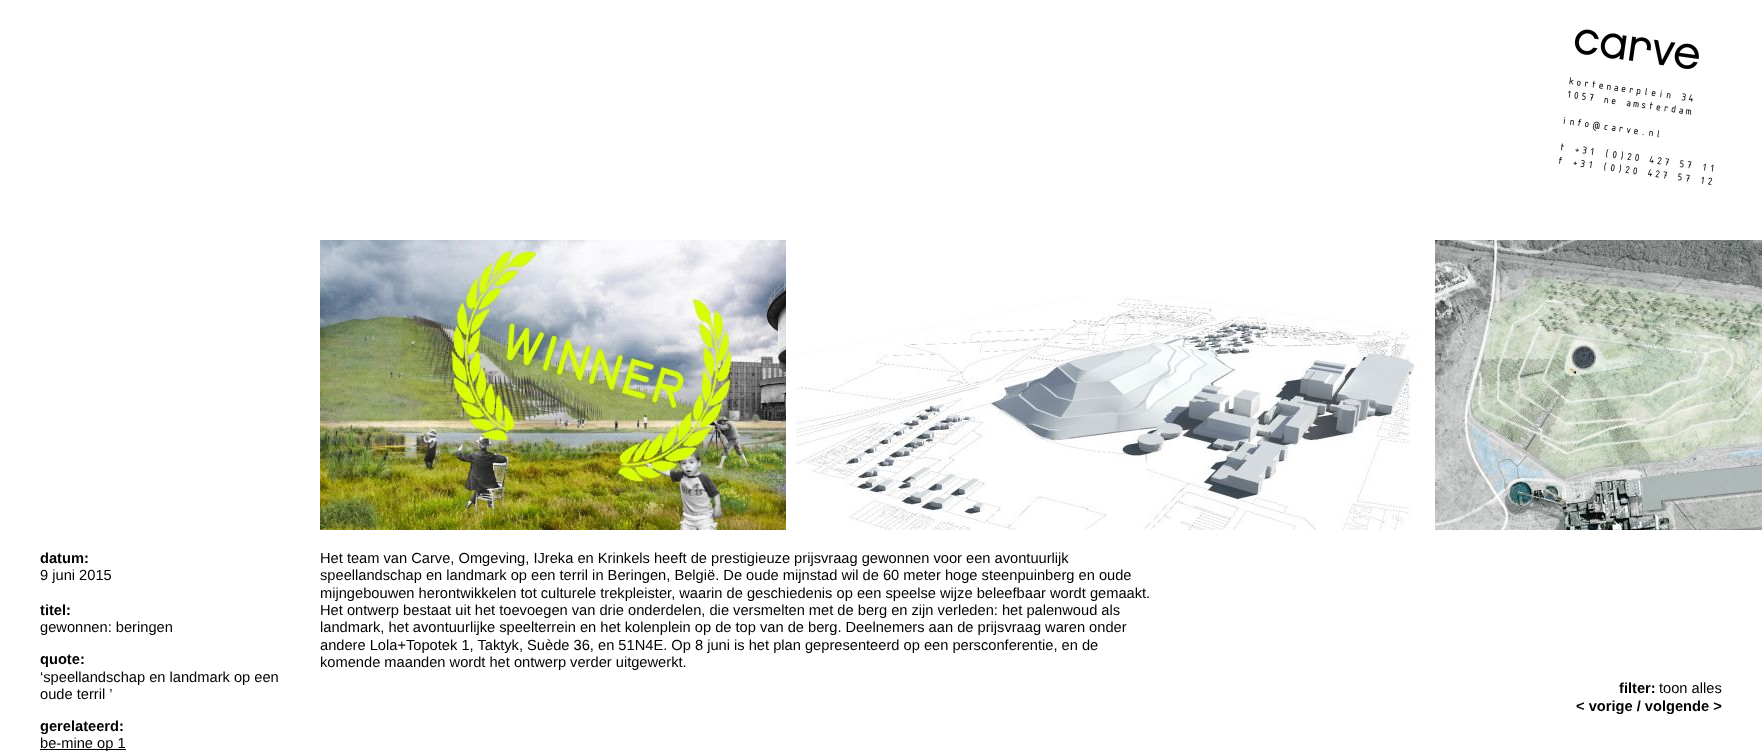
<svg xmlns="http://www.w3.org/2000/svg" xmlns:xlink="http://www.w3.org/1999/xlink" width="1762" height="755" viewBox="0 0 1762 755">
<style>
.cls-1{font:bold 14.67px Liberation Sans;fill:#000000}
.cls-2{font:14.67px Liberation Sans;fill:#000000}
</style>
<rect width="100%" height="100%" fill="#ffffff"/>
<image xlink:href="image0.png" x="1559" y="29" width="155" height="156"/>
<image xlink:href="image1.png" x="320" y="240" width="466" height="290"/>
<image xlink:href="image2.png" x="796" y="296" width="623" height="234"/>
<image xlink:href="image3.png" x="1435" y="240" width="327" height="290"/>
<rect fill="#000000" x="40" y="749" width="86" height="1"/>
<text class="cls-1" x="40" y="563">datum:</text>
<text class="cls-2" x="40" y="580">9 juni 2015</text>
<text class="cls-1" x="40" y="615">titel:</text>
<text class="cls-2" x="40" y="632">gewonnen: beringen</text>
<text class="cls-1" x="40" y="664">quote:</text>
<text class="cls-2"><tspan x="40" y="682">‘speellandschap en landmark op een</tspan><tspan x="40" y="699">oude terril ’</tspan></text>
<text class="cls-1" x="40" y="731">gerelateerd:</text>
<text class="cls-2" x="40" y="748">be-mine op 1</text>
<text class="cls-2"><tspan x="320" y="563">Het team van Carve, Omgeving, IJreka en Krinkels heeft de prestigieuze prijsvraag gewonnen voor een avontuurlijk</tspan><tspan x="320" y="580">speellandschap en landmark op een terril in Beringen, België. De oude mijnstad wil de 60 meter hoge steenpuinberg en oude</tspan><tspan x="320" y="598">mijngebouwen herontwikkelen tot culturele trekpleister, waarin de geschiedenis op een speelse wijze beleefbaar wordt gemaakt.</tspan><tspan x="320" y="615">Het ontwerp bestaat uit het toevoegen van drie onderdelen, die versmelten met de berg en zijn verleden: het palenwoud als</tspan><tspan x="320" y="632">landmark, het avontuurlijke speelterrein en het kolenplein op de top van de berg. Deelnemers aan de prijsvraag waren onder</tspan><tspan x="320" y="650">andere Lola+Topotek 1, Taktyk, Suède 36, en 51N4E. Op 8 juni is het plan gepresenteerd op een persconferentie, en de</tspan><tspan x="320" y="667">komende maanden wordt het ontwerp verder uitgewerkt.</tspan></text>
<text class="cls-1" x="1619" y="693">filter:</text>
<text class="cls-2" x="1659" y="693">toon alles</text>
<text class="cls-1" x="1576" y="711">&lt; vorige / volgende &gt;</text>
</svg>
